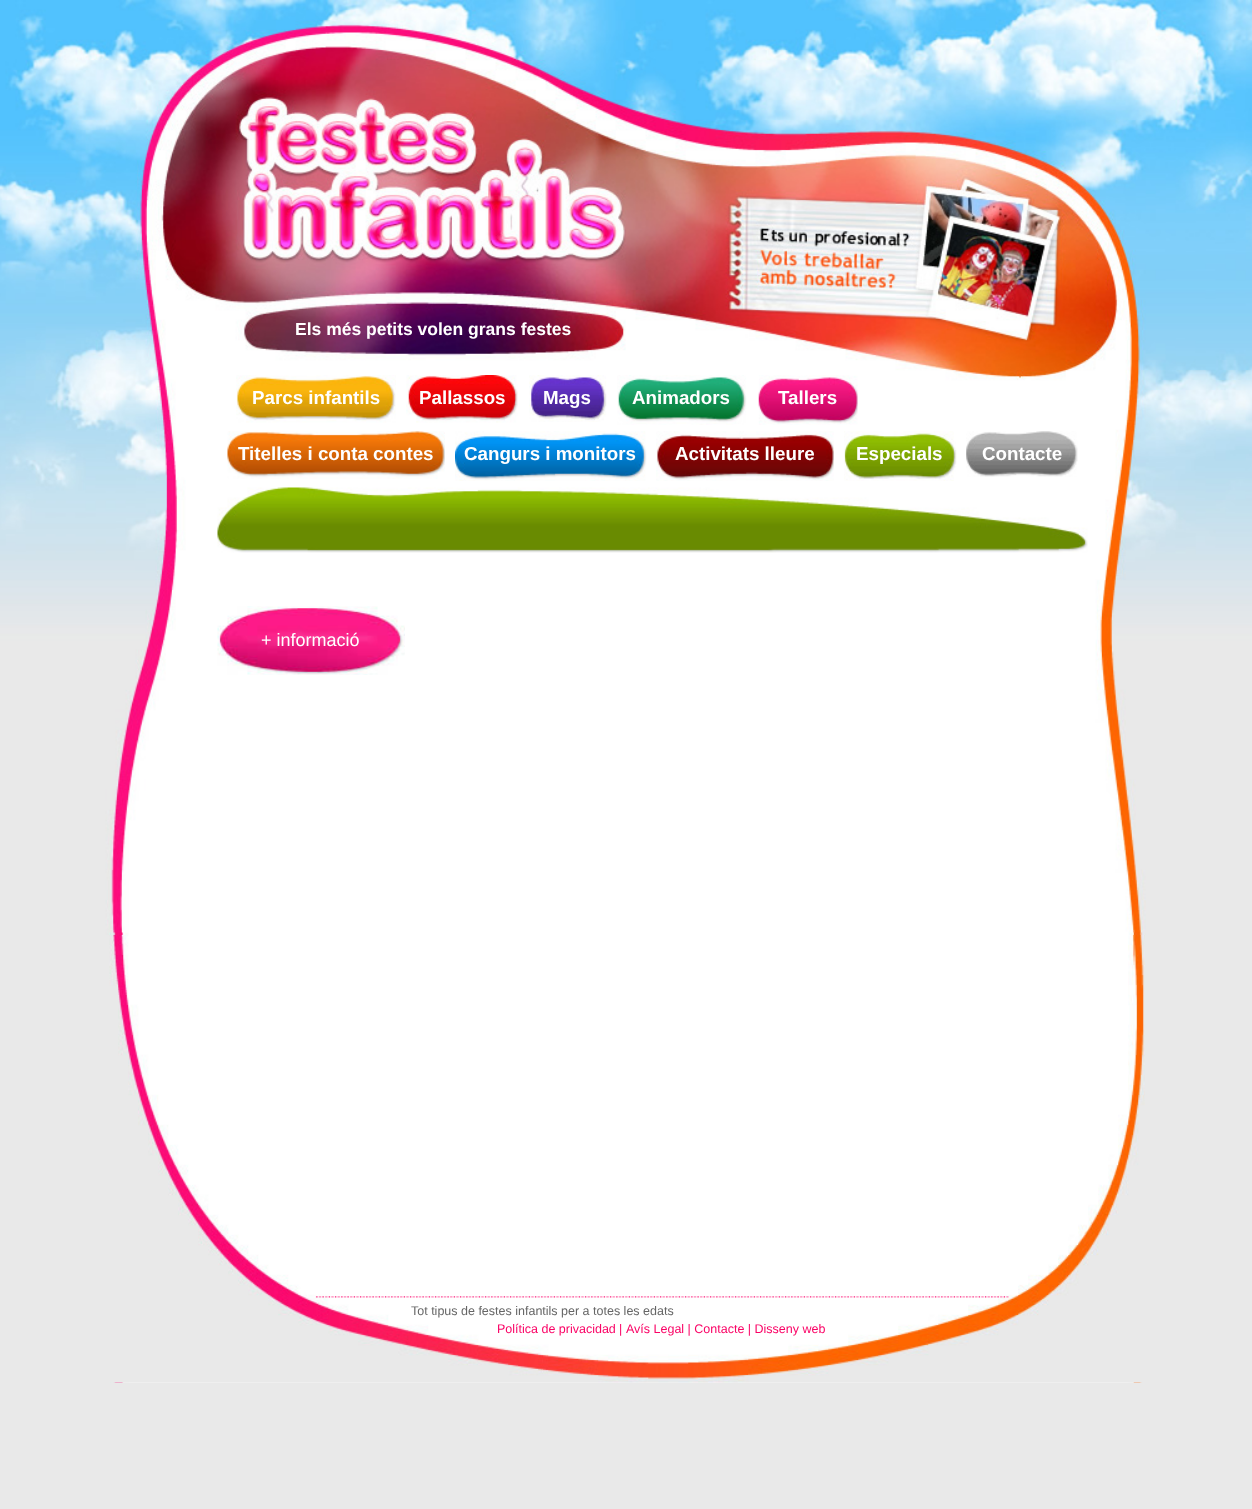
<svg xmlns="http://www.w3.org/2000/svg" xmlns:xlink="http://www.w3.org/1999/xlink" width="1252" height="1509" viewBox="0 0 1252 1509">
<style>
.cls-1{font:bold 17.5px Liberation Sans;fill:#ffffff}
.cls-2{font:bold 18.75px Liberation Sans;fill:#ffffff}
.cls-3{font:18px Liberation Sans;fill:#ffffff}
.cls-4{font:12.5px Liberation Sans;fill:#666666}
.cls-5{font:12.5px Liberation Sans;fill:#fa0265}
</style>
<rect width="100%" height="100%" fill="#e9e9e9"/>
<image xlink:href="image0.png" x="0" y="0" width="1252" height="935"/>
<image xlink:href="image1.png" x="109" y="932" width="1035" height="451"/>
<image xlink:href="image2.png" x="109" y="935" width="1036" height="448"/>
<image xlink:href="image3.png" x="236" y="375" width="160" height="48"/>
<image xlink:href="image4.png" x="406" y="375" width="112" height="48"/>
<image xlink:href="image5.png" x="529" y="375" width="78" height="47"/>
<image xlink:href="image6.png" x="617" y="375" width="130" height="50"/>
<image xlink:href="image7.png" x="758" y="375" width="100" height="50"/>
<image xlink:href="image8.png" x="227" y="431" width="218" height="48"/>
<image xlink:href="image9.png" x="455" y="431" width="192" height="50"/>
<image xlink:href="image10.png" x="656" y="431" width="178" height="50"/>
<image xlink:href="image11.png" x="844" y="431" width="113" height="50"/>
<image xlink:href="image12.png" x="966" y="431" width="112" height="46"/>
<image xlink:href="image13.png" x="217" y="487" width="871" height="66"/>
<image xlink:href="image14.png" x="217" y="606" width="188" height="69"/>
<image xlink:href="image15.png" x="315" y="1296" width="694" height="2"/>
<text class="cls-1" x="295" y="335">Els més petits volen grans festes</text>
<text class="cls-2" x="252" y="404">Parcs infantils</text>
<text class="cls-2" x="419" y="404">Pallassos</text>
<text class="cls-2" x="543" y="404">Mags</text>
<text class="cls-2" x="632" y="404">Animadors</text>
<text class="cls-2" x="778" y="404">Tallers</text>
<text class="cls-2" x="238" y="460">Titelles i conta contes</text>
<text class="cls-2" x="464" y="460">Cangurs i monitors</text>
<text class="cls-2" x="675" y="460">Activitats lleure</text>
<text class="cls-2" x="856" y="460">Especials</text>
<text class="cls-2" x="982" y="460">Contacte</text>
<text class="cls-3" x="261" y="646">+ informació</text>
<text class="cls-4" x="411" y="1315">Tot tipus de festes infantils per a totes les edats</text>
<text class="cls-5" x="497" y="1333">Política de privacidad</text>
<text class="cls-5" x="619" y="1333">|</text>
<text class="cls-5" x="626" y="1333">Avís Legal | Contacte | Disseny web</text>
</svg>
